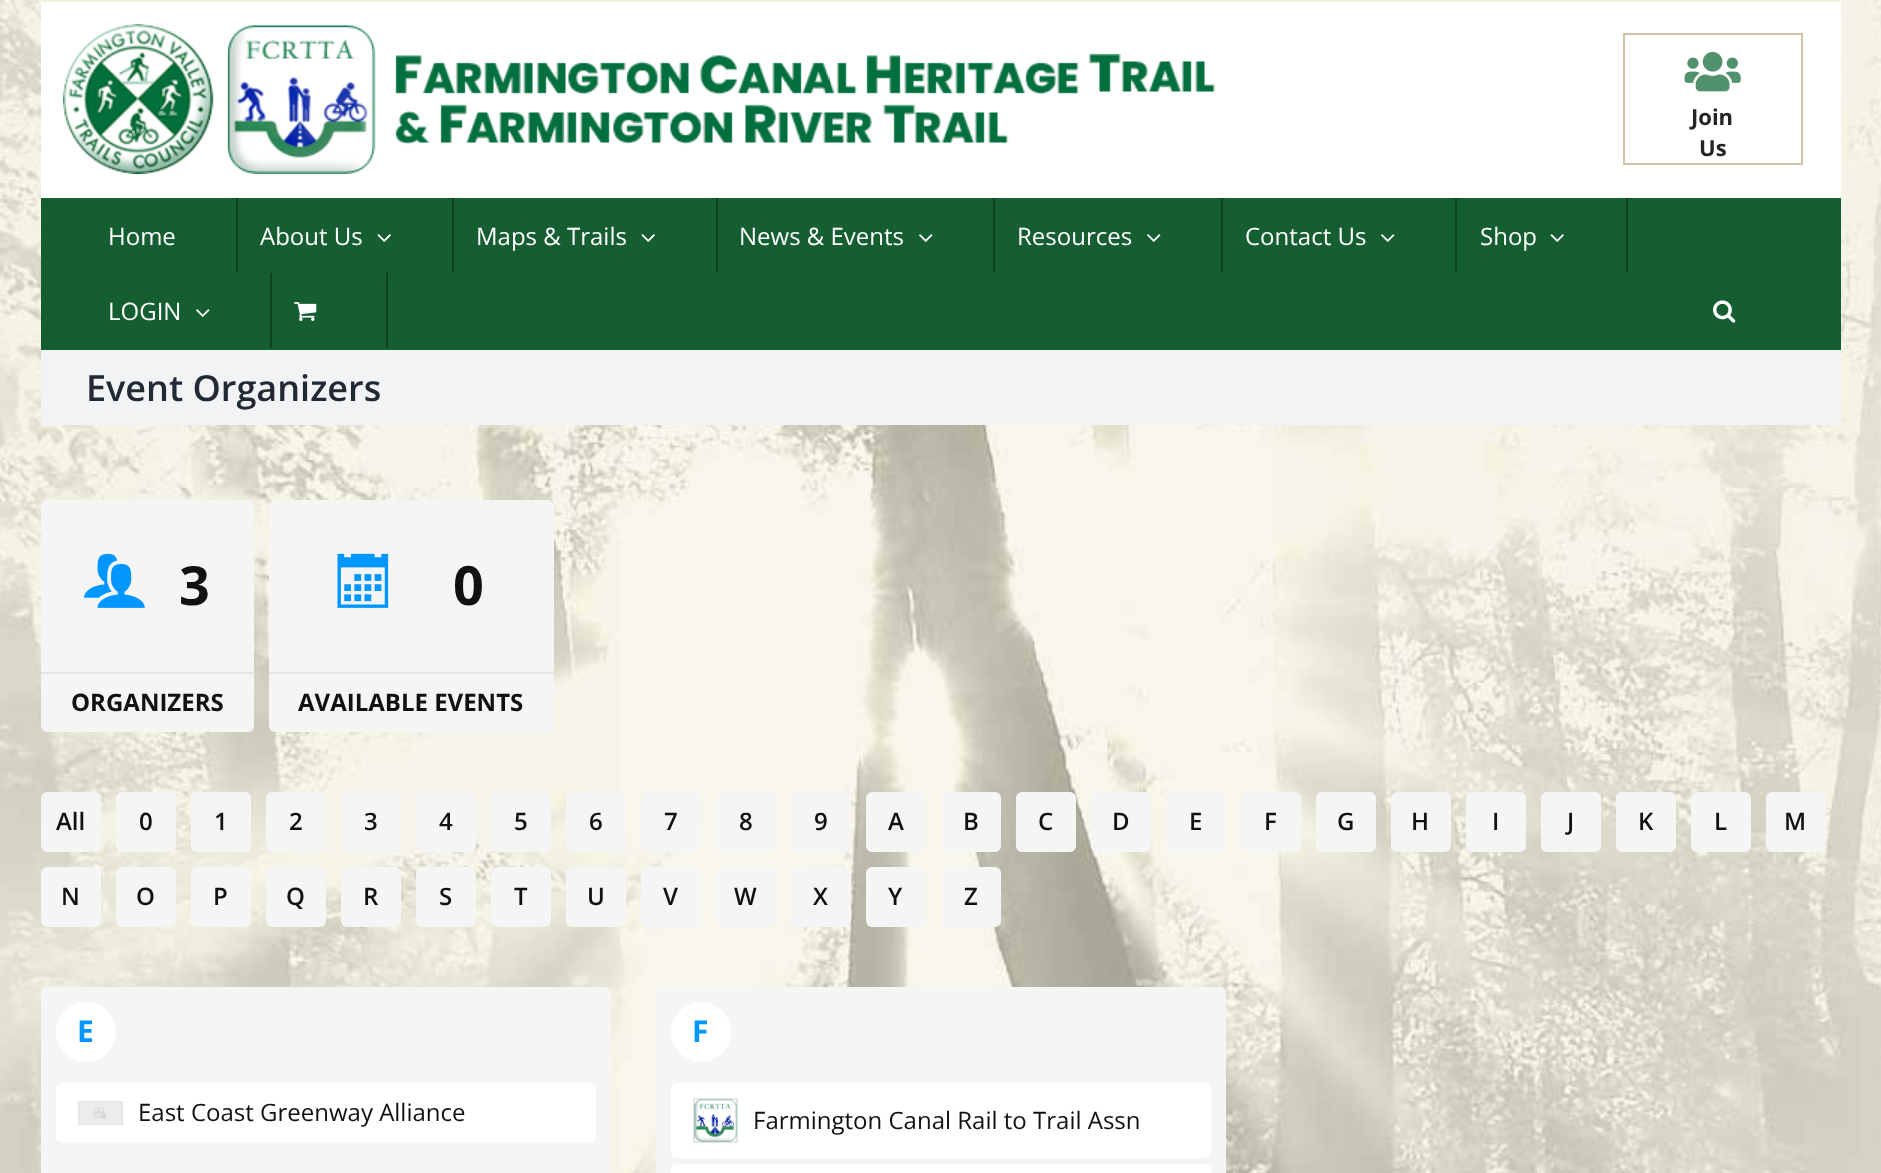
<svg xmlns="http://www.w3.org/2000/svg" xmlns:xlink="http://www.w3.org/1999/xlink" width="1881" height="1173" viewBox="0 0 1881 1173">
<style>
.cls-1{font:bold 22px Open Sans;fill:#252525}
.cls-2{font:24px Open Sans;fill:#ffffff}
.cls-3{font:600 36px Open Sans;fill:#212934}
.cls-4{font:bold 54px Open Sans;fill:#111111}
.cls-5{font:bold 24px Open Sans;fill:#111111}
.cls-6{font:600 24px Open Sans;fill:#111111}
.cls-7{font:bold 30px Open Sans;fill:#0096ff}
.cls-8{font:24px Open Sans;fill:#111111}
</style>
<rect width="100%" height="100%" fill="#ffffff"/>
<image xlink:href="image0.png" x="0" y="0" width="1881" height="1173"/>
<rect fill="#f3f1e2" x="41" y="0" width="1800" height="2"/>
<rect fill="#ffffff" x="41" y="2" width="1800" height="196"/>
<image xlink:href="image1.png" x="63" y="24" width="1153" height="150"/>
<rect fill="none" stroke="#d1c2a8" stroke-width="2" x="1624" y="34" width="178" height="130"/>
<image xlink:href="image2.png" x="1684" y="51" width="57" height="41"/>
<rect fill="#155e31" x="41" y="198" width="1800" height="152"/>
<rect fill="#0e4222" x="236" y="198" width="2" height="75"/>
<rect fill="#0e4222" x="452" y="198" width="2" height="75"/>
<image xlink:href="image3.png" x="377" y="234" width="14" height="8"/>
<rect fill="#0e4222" x="716" y="198" width="2" height="75"/>
<image xlink:href="image3.png" x="641" y="234" width="14" height="8"/>
<rect fill="#0e4222" x="993" y="198" width="2" height="75"/>
<image xlink:href="image4.png" x="919" y="234" width="14" height="8"/>
<rect fill="#0e4222" x="1221" y="198" width="2" height="75"/>
<image xlink:href="image4.png" x="1147" y="234" width="14" height="8"/>
<rect fill="#0e4222" x="1455" y="198" width="2" height="75"/>
<image xlink:href="image4.png" x="1381" y="234" width="14" height="8"/>
<rect fill="#0e4222" x="1626" y="198" width="2" height="75"/>
<image xlink:href="image3.png" x="1550" y="234" width="14" height="8"/>
<rect fill="#0e4222" x="270" y="273" width="2" height="75"/>
<image xlink:href="image4.png" x="196" y="309" width="14" height="8"/>
<rect fill="#0e4222" x="386" y="273" width="2" height="75"/>
<image xlink:href="image5.png" x="294" y="302" width="23" height="19"/>
<image xlink:href="image6.png" x="1713" y="300" width="23" height="23"/>
<rect fill="#f2f3f5" x="41" y="350" width="1800" height="75"/>
<rect fill="#f5f5f5" x="41" y="500" width="213" height="232" rx="6"/>
<image xlink:href="image7.png" x="84" y="553" width="61" height="55"/>
<rect fill="#e4e4e4" x="41" y="672" width="213" height="2"/>
<rect fill="#f5f5f5" x="269" y="500" width="285" height="232" rx="6"/>
<image xlink:href="image8.png" x="337" y="553" width="52" height="55"/>
<rect fill="#e4e4e4" x="269" y="672" width="285" height="2"/>
<rect fill="#f5f5f5" x="41" y="792" width="60" height="60" rx="6"/>
<rect fill="#f5f5f5" x="116" y="792" width="60" height="60" rx="6"/>
<rect fill="#f5f5f5" x="191" y="792" width="60" height="60" rx="6"/>
<rect fill="#f5f5f5" x="266" y="792" width="60" height="60" rx="6"/>
<rect fill="#f5f5f5" x="341" y="792" width="60" height="60" rx="6"/>
<rect fill="#f5f5f5" x="416" y="792" width="60" height="60" rx="6"/>
<rect fill="#f5f5f5" x="491" y="792" width="60" height="60" rx="6"/>
<rect fill="#f5f5f5" x="566" y="792" width="60" height="60" rx="6"/>
<rect fill="#f5f5f5" x="641" y="792" width="60" height="60" rx="6"/>
<rect fill="#f5f5f5" x="716" y="792" width="60" height="60" rx="6"/>
<rect fill="#f5f5f5" x="791" y="792" width="60" height="60" rx="6"/>
<rect fill="#f5f5f5" x="866" y="792" width="60" height="60" rx="6"/>
<rect fill="#f5f5f5" x="941" y="792" width="60" height="60" rx="6"/>
<rect fill="#f5f5f5" x="1016" y="792" width="60" height="60" rx="6"/>
<rect fill="#f5f5f5" x="1091" y="792" width="60" height="60" rx="6"/>
<rect fill="#f5f5f5" x="1166" y="792" width="60" height="60" rx="6"/>
<rect fill="#f5f5f5" x="1241" y="792" width="60" height="60" rx="6"/>
<rect fill="#f5f5f5" x="1316" y="792" width="60" height="60" rx="6"/>
<rect fill="#f5f5f5" x="1391" y="792" width="60" height="60" rx="6"/>
<rect fill="#f5f5f5" x="1466" y="792" width="60" height="60" rx="6"/>
<rect fill="#f5f5f5" x="1541" y="792" width="60" height="60" rx="6"/>
<rect fill="#f5f5f5" x="1616" y="792" width="60" height="60" rx="6"/>
<rect fill="#f5f5f5" x="1691" y="792" width="60" height="60" rx="6"/>
<rect fill="#f5f5f5" x="1766" y="792" width="60" height="60" rx="6"/>
<rect fill="#f5f5f5" x="41" y="867" width="60" height="60" rx="6"/>
<rect fill="#f5f5f5" x="116" y="867" width="60" height="60" rx="6"/>
<rect fill="#f5f5f5" x="191" y="867" width="60" height="60" rx="6"/>
<rect fill="#f5f5f5" x="266" y="867" width="60" height="60" rx="6"/>
<rect fill="#f5f5f5" x="341" y="867" width="60" height="60" rx="6"/>
<rect fill="#f5f5f5" x="416" y="867" width="60" height="60" rx="6"/>
<rect fill="#f5f5f5" x="491" y="867" width="60" height="60" rx="6"/>
<rect fill="#f5f5f5" x="566" y="867" width="60" height="60" rx="6"/>
<rect fill="#f5f5f5" x="641" y="867" width="60" height="60" rx="6"/>
<rect fill="#f5f5f5" x="716" y="867" width="60" height="60" rx="6"/>
<rect fill="#f5f5f5" x="791" y="867" width="60" height="60" rx="6"/>
<rect fill="#f5f5f5" x="866" y="867" width="60" height="60" rx="6"/>
<rect fill="#f5f5f5" x="941" y="867" width="60" height="60" rx="6"/>
<rect fill="#f5f5f5" x="41" y="987" width="570" height="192" rx="6"/>
<circle fill="#ffffff" cx="86" cy="1032" r="30"/>
<rect fill="#ffffff" x="56" y="1083" width="540" height="60" rx="6"/>
<rect fill="none" stroke="#e4e4e4" stroke-width="2" x="79" y="1102" width="43" height="22"/>
<image xlink:href="image9.png" x="79" y="1102" width="43" height="22"/>
<rect fill="#f5f5f5" x="656" y="987" width="570" height="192" rx="6"/>
<circle fill="#ffffff" cx="701" cy="1032" r="30"/>
<rect fill="#ffffff" x="671" y="1083" width="540" height="75" rx="6"/>
<rect fill="none" stroke="#e4e4e4" stroke-width="2" x="694" y="1099" width="43" height="43"/>
<image xlink:href="image10.png" x="694" y="1099" width="43" height="43"/>
<rect fill="#ffffff" x="671" y="1164" width="540" height="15" rx="6"/>
<text class="cls-1" x="1691" y="125">Join</text>
<text class="cls-1" x="1699" y="156">Us</text>
<text class="cls-2" x="108" y="245">Home</text>
<text class="cls-2" x="260" y="245">About Us</text>
<text class="cls-2" x="476" y="245">Maps &amp; Trails</text>
<text class="cls-2" x="739" y="245">News &amp; Events</text>
<text class="cls-2" x="1017" y="245">Resources</text>
<text class="cls-2" x="1245" y="245">Contact Us</text>
<text class="cls-2" x="1480" y="245">Shop</text>
<text class="cls-2" x="108" y="320">LOGIN</text>
<text class="cls-3" x="86" y="401">Event Organizers</text>
<text class="cls-4" x="179" y="605">3</text>
<text class="cls-5" x="71" y="711">ORGANIZERS</text>
<text class="cls-4" x="453" y="605">0</text>
<text class="cls-5" x="298" y="711">AVAILABLE EVENTS</text>
<text class="cls-6" x="56" y="830">All</text>
<text class="cls-6" x="139" y="830">0</text>
<text class="cls-6" x="214" y="830">1</text>
<text class="cls-6" x="289" y="830">2</text>
<text class="cls-6" x="364" y="830">3</text>
<text class="cls-6" x="439" y="830">4</text>
<text class="cls-6" x="514" y="830">5</text>
<text class="cls-6" x="589" y="830">6</text>
<text class="cls-6" x="664" y="830">7</text>
<text class="cls-6" x="739" y="830">8</text>
<text class="cls-6" x="814" y="830">9</text>
<text class="cls-6" x="888" y="830">A</text>
<text class="cls-6" x="963" y="830">B</text>
<text class="cls-6" x="1038" y="830">C</text>
<text class="cls-6" x="1112" y="830">D</text>
<text class="cls-6" x="1189" y="830">E</text>
<text class="cls-6" x="1264" y="830">F</text>
<text class="cls-6" x="1337" y="830">G</text>
<text class="cls-6" x="1411" y="830">H</text>
<text class="cls-6" x="1492" y="830">I</text>
<text class="cls-6" x="1567" y="830">J</text>
<text class="cls-6" x="1638" y="830">K</text>
<text class="cls-6" x="1714" y="830">L</text>
<text class="cls-6" x="1784" y="830">M</text>
<text class="cls-6" x="61" y="905">N</text>
<text class="cls-6" x="136" y="905">O</text>
<text class="cls-6" x="213" y="905">P</text>
<text class="cls-6" x="286" y="905">Q</text>
<text class="cls-6" x="363" y="905">R</text>
<text class="cls-6" x="439" y="905">S</text>
<text class="cls-6" x="514" y="905">T</text>
<text class="cls-6" x="587" y="905">U</text>
<text class="cls-6" x="663" y="905">V</text>
<text class="cls-6" x="734" y="905">W</text>
<text class="cls-6" x="813" y="905">X</text>
<text class="cls-6" x="888" y="905">Y</text>
<text class="cls-6" x="964" y="905">Z</text>
<text class="cls-7" x="77" y="1042">E</text>
<text class="cls-8" x="138" y="1121">East Coast Greenway Alliance</text>
<text class="cls-7" x="692" y="1042">F</text>
<text class="cls-8" x="753" y="1129">Farmington Canal Rail to Trail Assn</text>
</svg>
